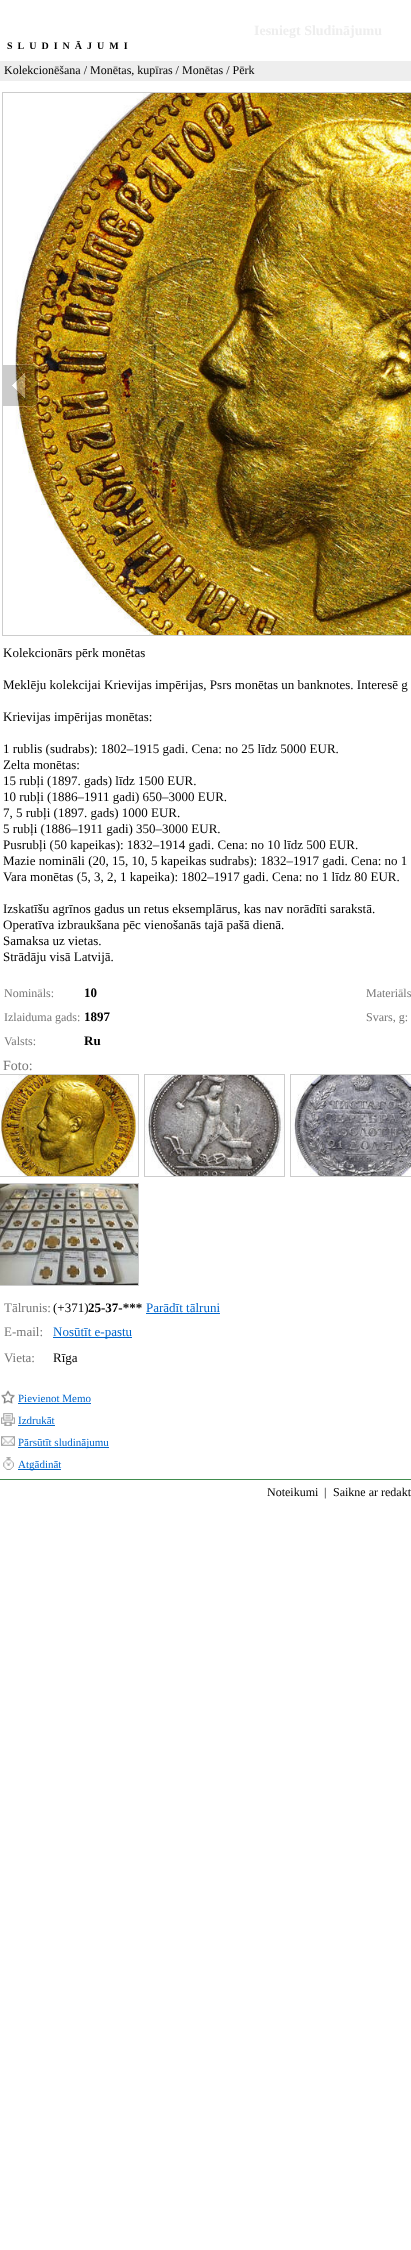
<svg xmlns="http://www.w3.org/2000/svg" xmlns:xlink="http://www.w3.org/1999/xlink" width="411" height="2250" viewBox="0 0 411 2250">
<style>
.cls-1{font:bold 14px Liberation Serif;fill:#eeeeee}
.cls-2{font:bold 10px Liberation Serif;letter-spacing:5px;fill:#000000}
.cls-3{font:12px Liberation Serif;fill:#000000}
.cls-4{font:13px Liberation Serif;fill:#000000}
.cls-5{font:12px Liberation Serif;fill:#777777}
.cls-6{font:bold 13px Liberation Serif;fill:#000000}
.cls-7{font:14px Liberation Serif;fill:#777777}
.cls-8{font:13px Liberation Serif;fill:#777777}
.cls-9{font:13px Liberation Serif;fill:#0066cc}
.cls-10{font:11px Liberation Serif;fill:#0066cc}
</style>
<rect width="100%" height="100%" fill="#ffffff"/>
<rect fill="#eeeeee" x="0" y="61" width="411" height="20"/>
<rect fill="none" stroke="#cccccc" x="2.5" y="92.5" width="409" height="543"/>
<image xlink:href="image0.png" x="15" y="93" width="396" height="542"/>
<image xlink:href="image1.png" x="3" y="364" width="36" height="43"/>
<rect fill="none" stroke="#cccccc" x="-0.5" y="1074.5" width="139" height="102"/>
<image xlink:href="image2.png" x="0" y="1075" width="138" height="101"/>
<rect fill="none" stroke="#cccccc" x="144.5" y="1074.5" width="140" height="102"/>
<image xlink:href="image3.png" x="145" y="1075" width="139" height="101"/>
<rect fill="none" stroke="#cccccc" x="290.5" y="1074.5" width="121" height="102"/>
<image xlink:href="image4.png" x="291" y="1075" width="120" height="101"/>
<rect fill="none" stroke="#cccccc" x="-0.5" y="1183.5" width="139" height="102"/>
<image xlink:href="image5.png" x="0" y="1184" width="138" height="101"/>
<rect fill="#0066cc" x="146" y="1313" width="74" height="1"/>
<rect fill="#0066cc" x="53" y="1337" width="79" height="1"/>
<image xlink:href="image6.png" x="1" y="1390" width="14" height="14"/>
<rect fill="#0066cc" x="18" y="1403" width="73" height="1"/>
<image xlink:href="image7.png" x="1" y="1413" width="14" height="13"/>
<rect fill="#0066cc" x="18" y="1425" width="37" height="1"/>
<image xlink:href="image8.png" x="1" y="1436" width="14" height="10"/>
<rect fill="#0066cc" x="18" y="1447" width="91" height="1"/>
<image xlink:href="image9.png" x="3" y="1457" width="11" height="13"/>
<rect fill="#0066cc" x="18" y="1469" width="43" height="1"/>
<rect fill="#418c4e" x="0" y="1479" width="411" height="1"/>
<text class="cls-1" x="254" y="35">Iesniegt Sludinājumu</text>
<text class="cls-2" x="7" y="49">SLUDINĀJUMI</text>
<text class="cls-3" x="4" y="74">Kolekcionēšana / Monētas, kupīras / Monētas / Pērk</text>
<text class="cls-4" x="3" y="657">Kolekcionārs pērk monētas</text>
<text class="cls-4" x="3" y="689">Meklēju kolekcijai Krievijas impērijas, Psrs monētas un banknotes. Interesē g</text>
<text class="cls-4" x="3" y="721">Krievijas impērijas monētas:</text>
<text class="cls-4"><tspan x="3" y="753">1 rublis (sudrabs): 1802–1915 gadi. Cena: no 25 līdz 5000 EUR.</tspan><tspan x="3" y="769">Zelta monētas:</tspan><tspan x="3" y="785">15 rubļi (1897. gads) līdz 1500 EUR.</tspan><tspan x="3" y="801">10 rubļi (1886–1911 gadi) 650–3000 EUR.</tspan><tspan x="3" y="817">7, 5 rubļi (1897. gads) 1000 EUR.</tspan><tspan x="3" y="833">5 rubļi (1886–1911 gadi) 350–3000 EUR.</tspan><tspan x="3" y="849">Pusrubļi (50 kapeikas): 1832–1914 gadi. Cena: no 10 līdz 500 EUR.</tspan><tspan x="3" y="865">Mazie nomināli (20, 15, 10, 5 kapeikas sudrabs): 1832–1917 gadi. Cena: no 1</tspan><tspan x="3" y="881">Vara monētas (5, 3, 2, 1 kapeika): 1802–1917 gadi. Cena: no 1 līdz 80 EUR.</tspan></text>
<text class="cls-4"><tspan x="3" y="913">Izskatīšu agrīnos gadus un retus eksemplārus, kas nav norādīti sarakstā.</tspan><tspan x="3" y="929">Operatīva izbraukšana pēc vienošanās tajā pašā dienā.</tspan><tspan x="3" y="945">Samaksa uz vietas.</tspan><tspan x="3" y="961">Strādāju visā Latvijā.</tspan></text>
<text class="cls-5" x="4" y="997">Nomināls:</text>
<text class="cls-6" x="84" y="997">10</text>
<text class="cls-5" x="4" y="1021">Izlaiduma gads:</text>
<text class="cls-6" x="84" y="1021">1897</text>
<text class="cls-5" x="4" y="1045">Valsts:</text>
<text class="cls-6" x="84" y="1045">Ru</text>
<text class="cls-5" x="366" y="997">Materiāls</text>
<text class="cls-5" x="366" y="1021">Svars, g:</text>
<text class="cls-7" x="3" y="1070">Foto:</text>
<text class="cls-8" x="4" y="1312">Tālrunis:</text>
<text class="cls-4" x="53" y="1312">(+371)</text>
<text class="cls-6" x="88" y="1312">25-37-***</text>
<text class="cls-9" x="146" y="1312">Parādīt tālruni</text>
<text class="cls-8" x="4" y="1336">E-mail:</text>
<text class="cls-9" x="53" y="1336">Nosūtīt e-pastu</text>
<text class="cls-8" x="4" y="1362">Vieta:</text>
<text class="cls-4" x="53" y="1362">Rīga</text>
<text class="cls-10" x="18" y="1402">Pievienot Memo</text>
<text class="cls-10" x="18" y="1424">Izdrukāt</text>
<text class="cls-10" x="18" y="1446">Pārsūtīt sludinājumu</text>
<text class="cls-10" x="18" y="1468">Atgādināt</text>
<text class="cls-3" x="267" y="1496">Noteikumi</text>
<text class="cls-3" x="324" y="1496">|</text>
<text class="cls-3" x="333" y="1496">Saikne ar redakt</text>
</svg>
